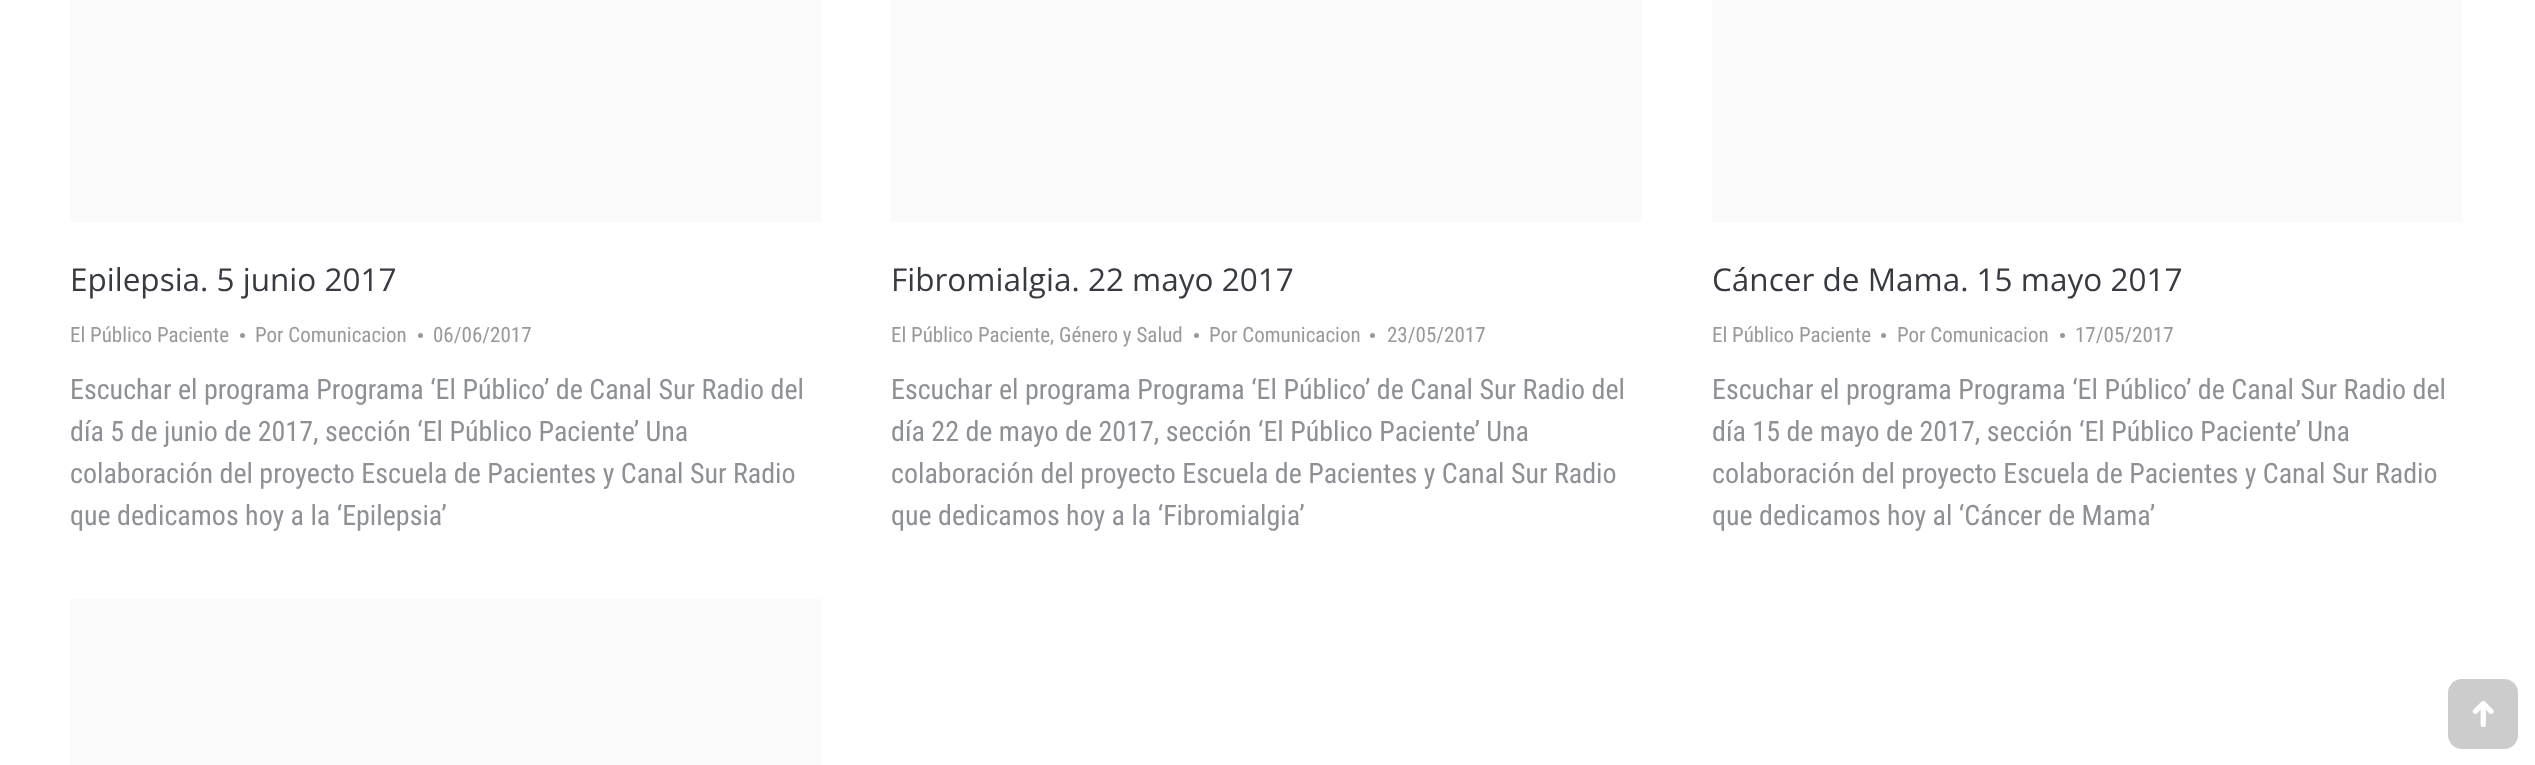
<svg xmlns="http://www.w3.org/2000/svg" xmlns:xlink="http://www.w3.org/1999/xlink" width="2535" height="765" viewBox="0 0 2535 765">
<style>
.cls-1{font:31.5px Open Sans;fill:#373a41}
.cls-2{font:21px Roboto Condensed;fill:#999999}
.cls-3{font:28px Roboto Condensed;fill:#8d9095}
</style>
<rect width="100%" height="100%" fill="#ffffff"/>
<rect fill="#fafafa" x="70" y="0" width="751" height="222"/>
<circle fill="#999999" cx="242.5" cy="335.5" r="2.5"/>
<circle fill="#999999" cx="420.5" cy="335.5" r="2.5"/>
<rect fill="#fafafa" x="891" y="0" width="751" height="222"/>
<circle fill="#999999" cx="1196.5" cy="335.5" r="2.5"/>
<circle fill="#999999" cx="1372.5" cy="335.5" r="2.5"/>
<rect fill="#fafafa" x="1712" y="0" width="750" height="222"/>
<circle fill="#999999" cx="1883.5" cy="335.5" r="2.5"/>
<circle fill="#999999" cx="2062.5" cy="335.5" r="2.5"/>
<rect fill="#fafafa" x="70" y="599" width="751" height="166"/>
<rect fill="#cccccc" x="2448" y="679" width="70" height="70" rx="14"/>
<image xlink:href="image0.png" x="2472" y="701" width="22" height="26"/>
<text class="cls-1" x="70" y="291">Epilepsia. 5 junio 2017</text>
<text class="cls-2" x="70" y="342">El Público Paciente</text>
<text class="cls-2" x="255" y="342">Por Comunicacion</text>
<text class="cls-2" x="433" y="342">06/06/2017</text>
<text class="cls-3"><tspan x="70" y="399">Escuchar el programa Programa ‘El Público’ de Canal Sur Radio del</tspan><tspan x="70" y="441">día 5 de junio de 2017, sección ‘El Público Paciente’ Una</tspan><tspan x="70" y="483">colaboración del proyecto Escuela de Pacientes y Canal Sur Radio</tspan><tspan x="70" y="525">que dedicamos hoy a la ‘Epilepsia’</tspan></text>
<text class="cls-1" x="891" y="291">Fibromialgia. 22 mayo 2017</text>
<text class="cls-2" x="891" y="342">El Público Paciente, Género y Salud</text>
<text class="cls-2" x="1209" y="342">Por Comunicacion</text>
<text class="cls-2" x="1387" y="342">23/05/2017</text>
<text class="cls-3"><tspan x="891" y="399">Escuchar el programa Programa ‘El Público’ de Canal Sur Radio del</tspan><tspan x="891" y="441">día 22 de mayo de 2017, sección ‘El Público Paciente’ Una</tspan><tspan x="891" y="483">colaboración del proyecto Escuela de Pacientes y Canal Sur Radio</tspan><tspan x="891" y="525">que dedicamos hoy a la ‘Fibromialgia’</tspan></text>
<text class="cls-1" x="1712" y="291">Cáncer de Mama. 15 mayo 2017</text>
<text class="cls-2" x="1712" y="342">El Público Paciente</text>
<text class="cls-2" x="1897" y="342">Por Comunicacion</text>
<text class="cls-2" x="2075" y="342">17/05/2017</text>
<text class="cls-3"><tspan x="1712" y="399">Escuchar el programa Programa ‘El Público’ de Canal Sur Radio del</tspan><tspan x="1712" y="441">día 15 de mayo de 2017, sección ‘El Público Paciente’ Una</tspan><tspan x="1712" y="483">colaboración del proyecto Escuela de Pacientes y Canal Sur Radio</tspan><tspan x="1712" y="525">que dedicamos hoy al ‘Cáncer de Mama’</tspan></text>
</svg>
